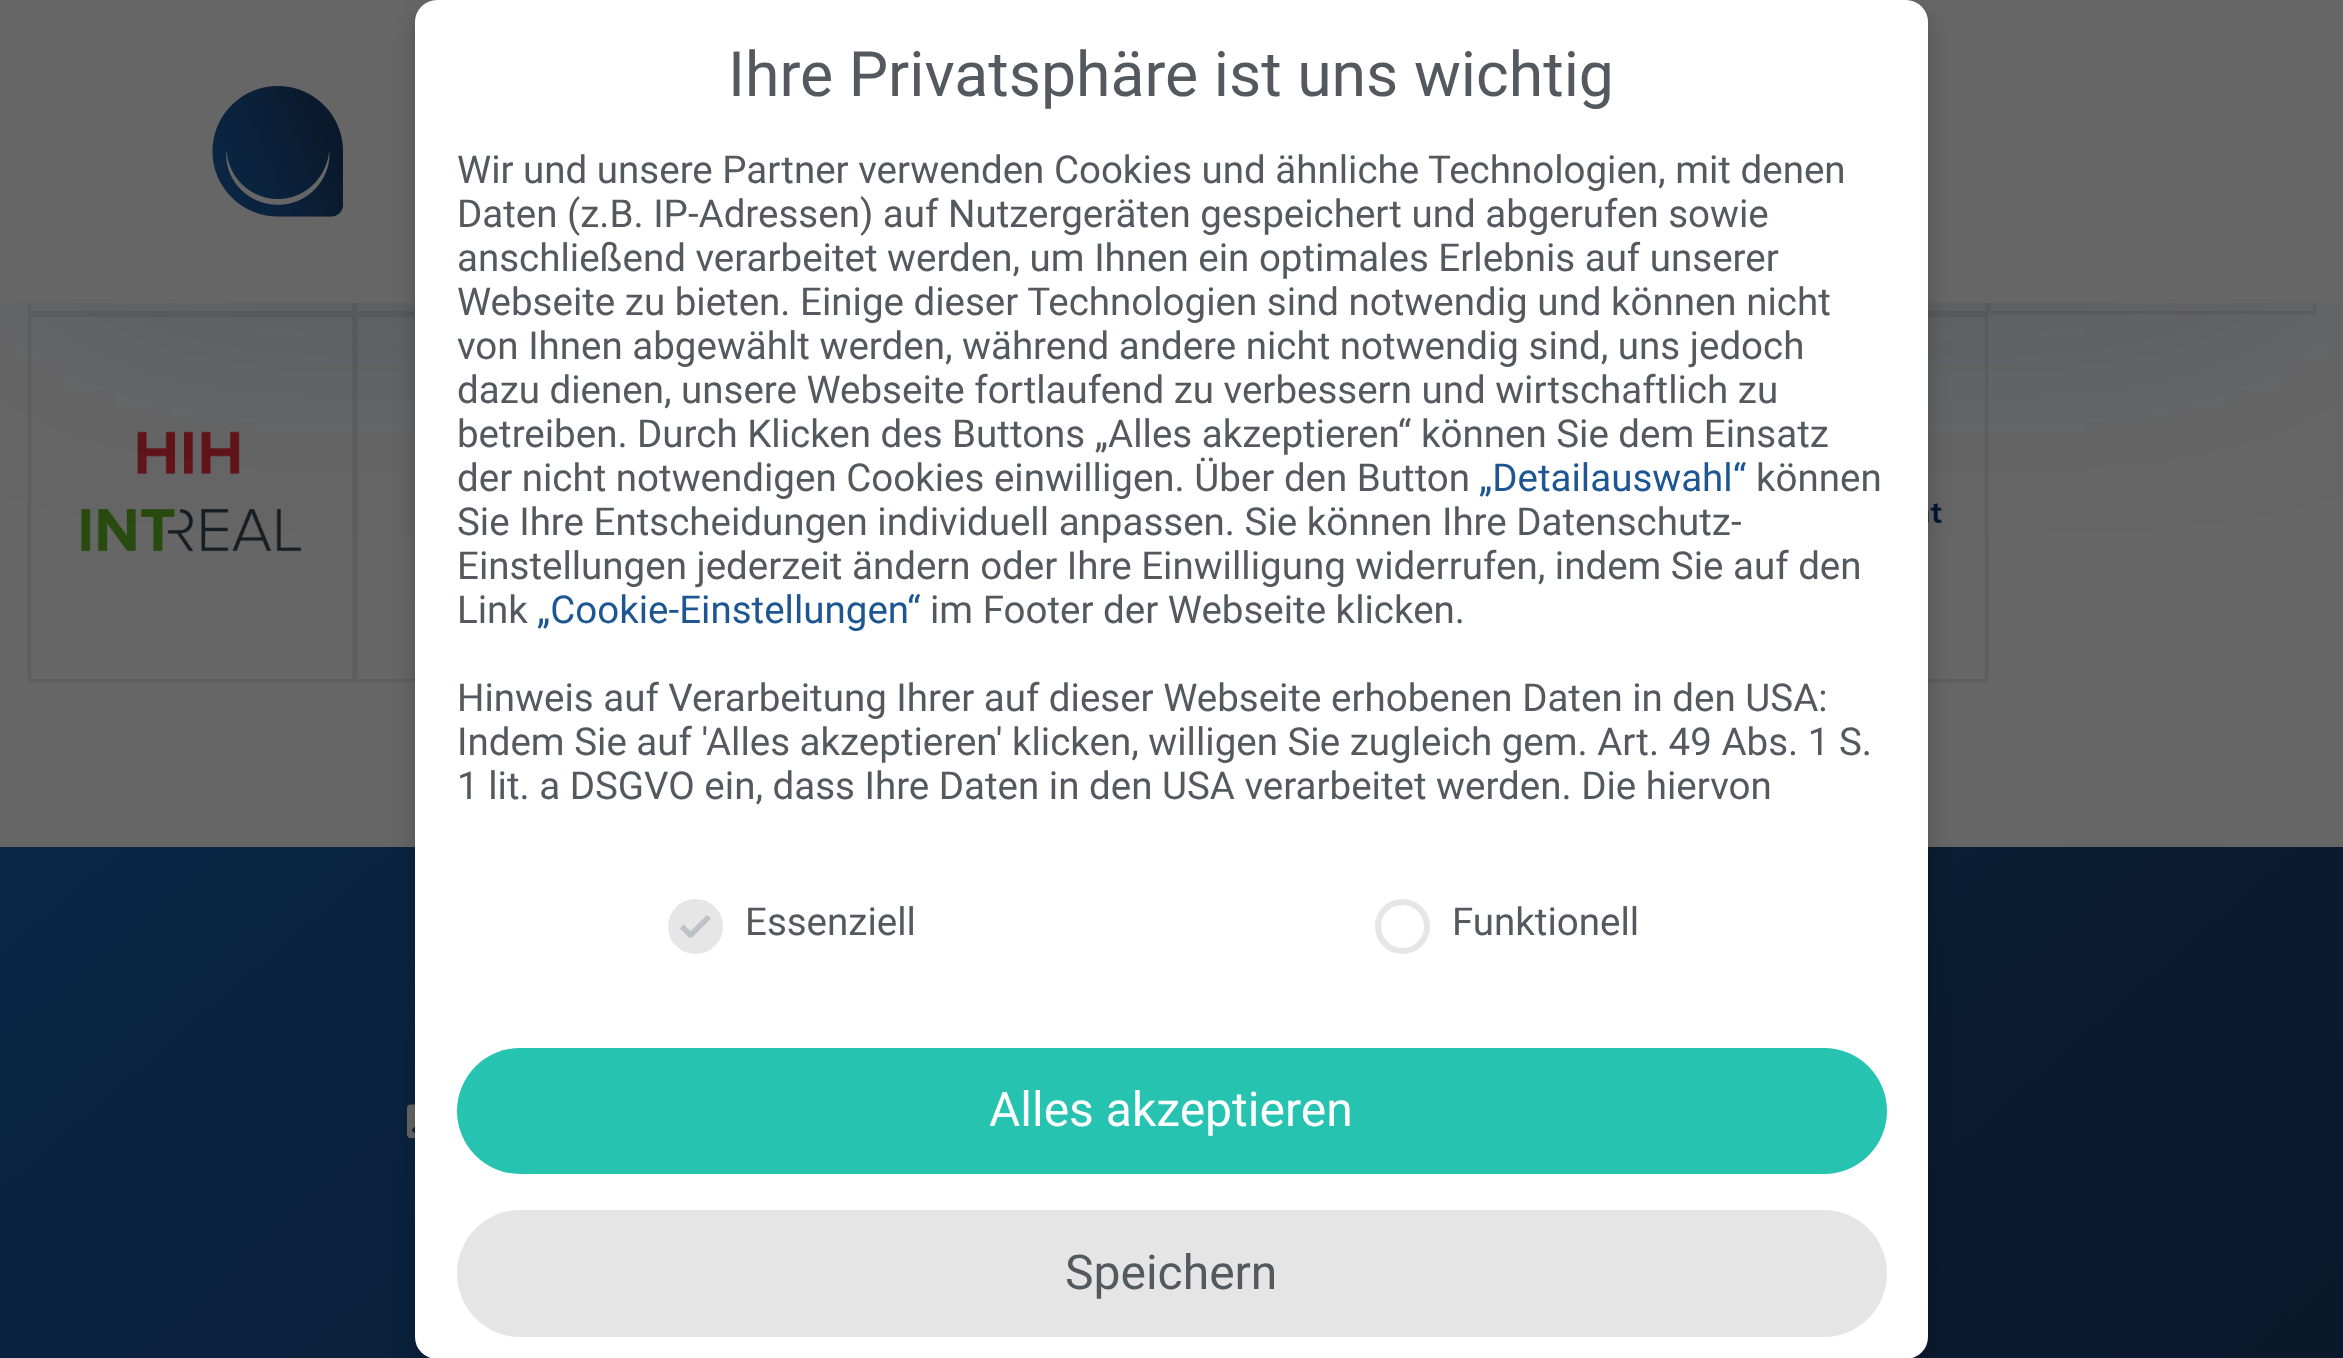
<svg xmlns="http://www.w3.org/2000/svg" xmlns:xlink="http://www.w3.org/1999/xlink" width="2343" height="1358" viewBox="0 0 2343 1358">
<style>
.cls-1{font:62.5px Roboto;fill:#54595f}
.cls-2{font:38.5px Roboto;fill:#54595f}
.cls-3{font:38.5px Roboto;fill:#1d5692}
.cls-4{font:48px Roboto;fill:#ffffff}
.cls-5{font:48px Roboto;fill:#54595f}
</style>
<defs>
<linearGradient id="g1" gradientUnits="userSpaceOnUse" x1="531" y1="385" x2="1812" y2="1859"><stop offset="0" stop-color="#0a2644"/><stop offset="1" stop-color="#0a182b"/></linearGradient>
</defs>
<rect width="100%" height="100%" fill="#666666"/>
<rect fill="none" stroke="#5e5e5e" stroke-width="3" x="29.5" y="-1.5" width="324" height="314"/>
<rect fill="none" stroke="#5e5e5e" stroke-width="3" x="356.5" y="-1.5" width="324" height="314"/>
<rect fill="none" stroke="#5e5e5e" stroke-width="3" x="1662.5" y="-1.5" width="324" height="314"/>
<rect fill="none" stroke="#5e5e5e" stroke-width="3" x="1989.5" y="-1.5" width="325" height="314"/>
<rect fill="none" stroke="#5e5e5e" stroke-width="3" x="29.5" y="315.5" width="324" height="365"/>
<image xlink:href="image0.png" x="81" y="431" width="221" height="121"/>
<rect fill="none" stroke="#5e5e5e" stroke-width="3" x="356.5" y="315.5" width="324" height="365"/>
<image xlink:href="image1.png" x="414" y="392" width="1" height="208"/>
<rect fill="none" stroke="#5e5e5e" stroke-width="3" x="1662.5" y="315.5" width="324" height="365"/>
<image xlink:href="image2.png" x="1928" y="461" width="14" height="70"/>
<rect fill="url(#g1)" x="0" y="847" width="2343" height="511"/>
<image xlink:href="image3.png" x="407" y="1104" width="8" height="35"/>
<rect fill="#061b4e" fill-opacity="0.27" filter="blur(137.5px)" x="63" y="63" width="2217" height="176"/>
<rect fill="#666666" x="0" y="0" width="2343" height="303"/>
<image xlink:href="image4.png" x="212" y="86" width="131" height="131"/>
<rect fill="#000000" fill-opacity="0.2" filter="blur(11px)" x="415" y="11" width="1513" height="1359" rx="22"/>
<rect fill="#ffffff" x="415" y="0" width="1513" height="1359" rx="22"/>
<circle fill="#e6e6e6" stroke="#e6e6e6" stroke-width="6" cx="695.5" cy="926.5" r="24.5"/>
<path fill="#bdc1c8" d="M707 915L711 918.5L691.5 938L687.5 934Z"/>
<path fill="#bdc1c8" d="M683.5 924.5L693.5 934L689.5 938L680 928.5Z"/>
<circle fill="none" stroke="#e6e6e6" stroke-width="6" cx="1402.5" cy="926.5" r="24.5"/>
<rect fill="#25c3b0" x="457" y="1048" width="1430" height="126" rx="63"/>
<rect fill="#e5e5e5" x="457" y="1210" width="1430" height="127" rx="63.5"/>
<text class="cls-1" x="728" y="96">Ihre Privatsphäre ist uns wichtig</text>
<text class="cls-2"><tspan x="457" y="183">Wir und unsere Partner verwenden Cookies und ähnliche Technologien, mit denen</tspan><tspan x="457" y="227">Daten (z.B. IP-Adressen) auf Nutzergeräten gespeichert und abgerufen sowie</tspan><tspan x="457" y="271">anschließend verarbeitet werden, um Ihnen ein optimales Erlebnis auf unserer</tspan><tspan x="457" y="315">Webseite zu bieten. Einige dieser Technologien sind notwendig und können nicht</tspan><tspan x="457" y="359">von Ihnen abgewählt werden, während andere nicht notwendig sind, uns jedoch</tspan><tspan x="457" y="403">dazu dienen, unsere Webseite fortlaufend zu verbessern und wirtschaftlich zu</tspan><tspan x="457" y="447">betreiben. Durch Klicken des Buttons „Alles akzeptieren“ können Sie dem Einsatz</tspan><tspan x="457" y="491">der nicht notwendigen Cookies einwilligen. Über den Button</tspan></text>
<text class="cls-3" x="1479" y="491">„Detailauswahl“</text>
<text class="cls-2" x="1756" y="491">können</text>
<text class="cls-2"><tspan x="457" y="535">Sie Ihre Entscheidungen individuell anpassen. Sie können Ihre Datenschutz-</tspan><tspan x="457" y="579">Einstellungen jederzeit ändern oder Ihre Einwilligung widerrufen, indem Sie auf den</tspan><tspan x="457" y="623">Link</tspan></text>
<text class="cls-3" x="537" y="623">„Cookie-Einstellungen“</text>
<text class="cls-2" x="930" y="623">im Footer der Webseite klicken.</text>
<text class="cls-2"><tspan x="457" y="711">Hinweis auf Verarbeitung Ihrer auf dieser Webseite erhobenen Daten in den USA:</tspan><tspan x="457" y="755">Indem Sie auf 'Alles akzeptieren' klicken, willigen Sie zugleich gem. Art. 49 Abs. 1 S.</tspan><tspan x="457" y="799">1 lit. a DSGVO ein, dass Ihre Daten in den USA verarbeitet werden. Die hiervon</tspan></text>
<text class="cls-2" x="745" y="935">Essenziell</text>
<text class="cls-2" x="1452" y="935">Funktionell</text>
<text class="cls-4" x="989" y="1126">Alles akzeptieren</text>
<text class="cls-5" x="1065" y="1289">Speichern</text>
</svg>
